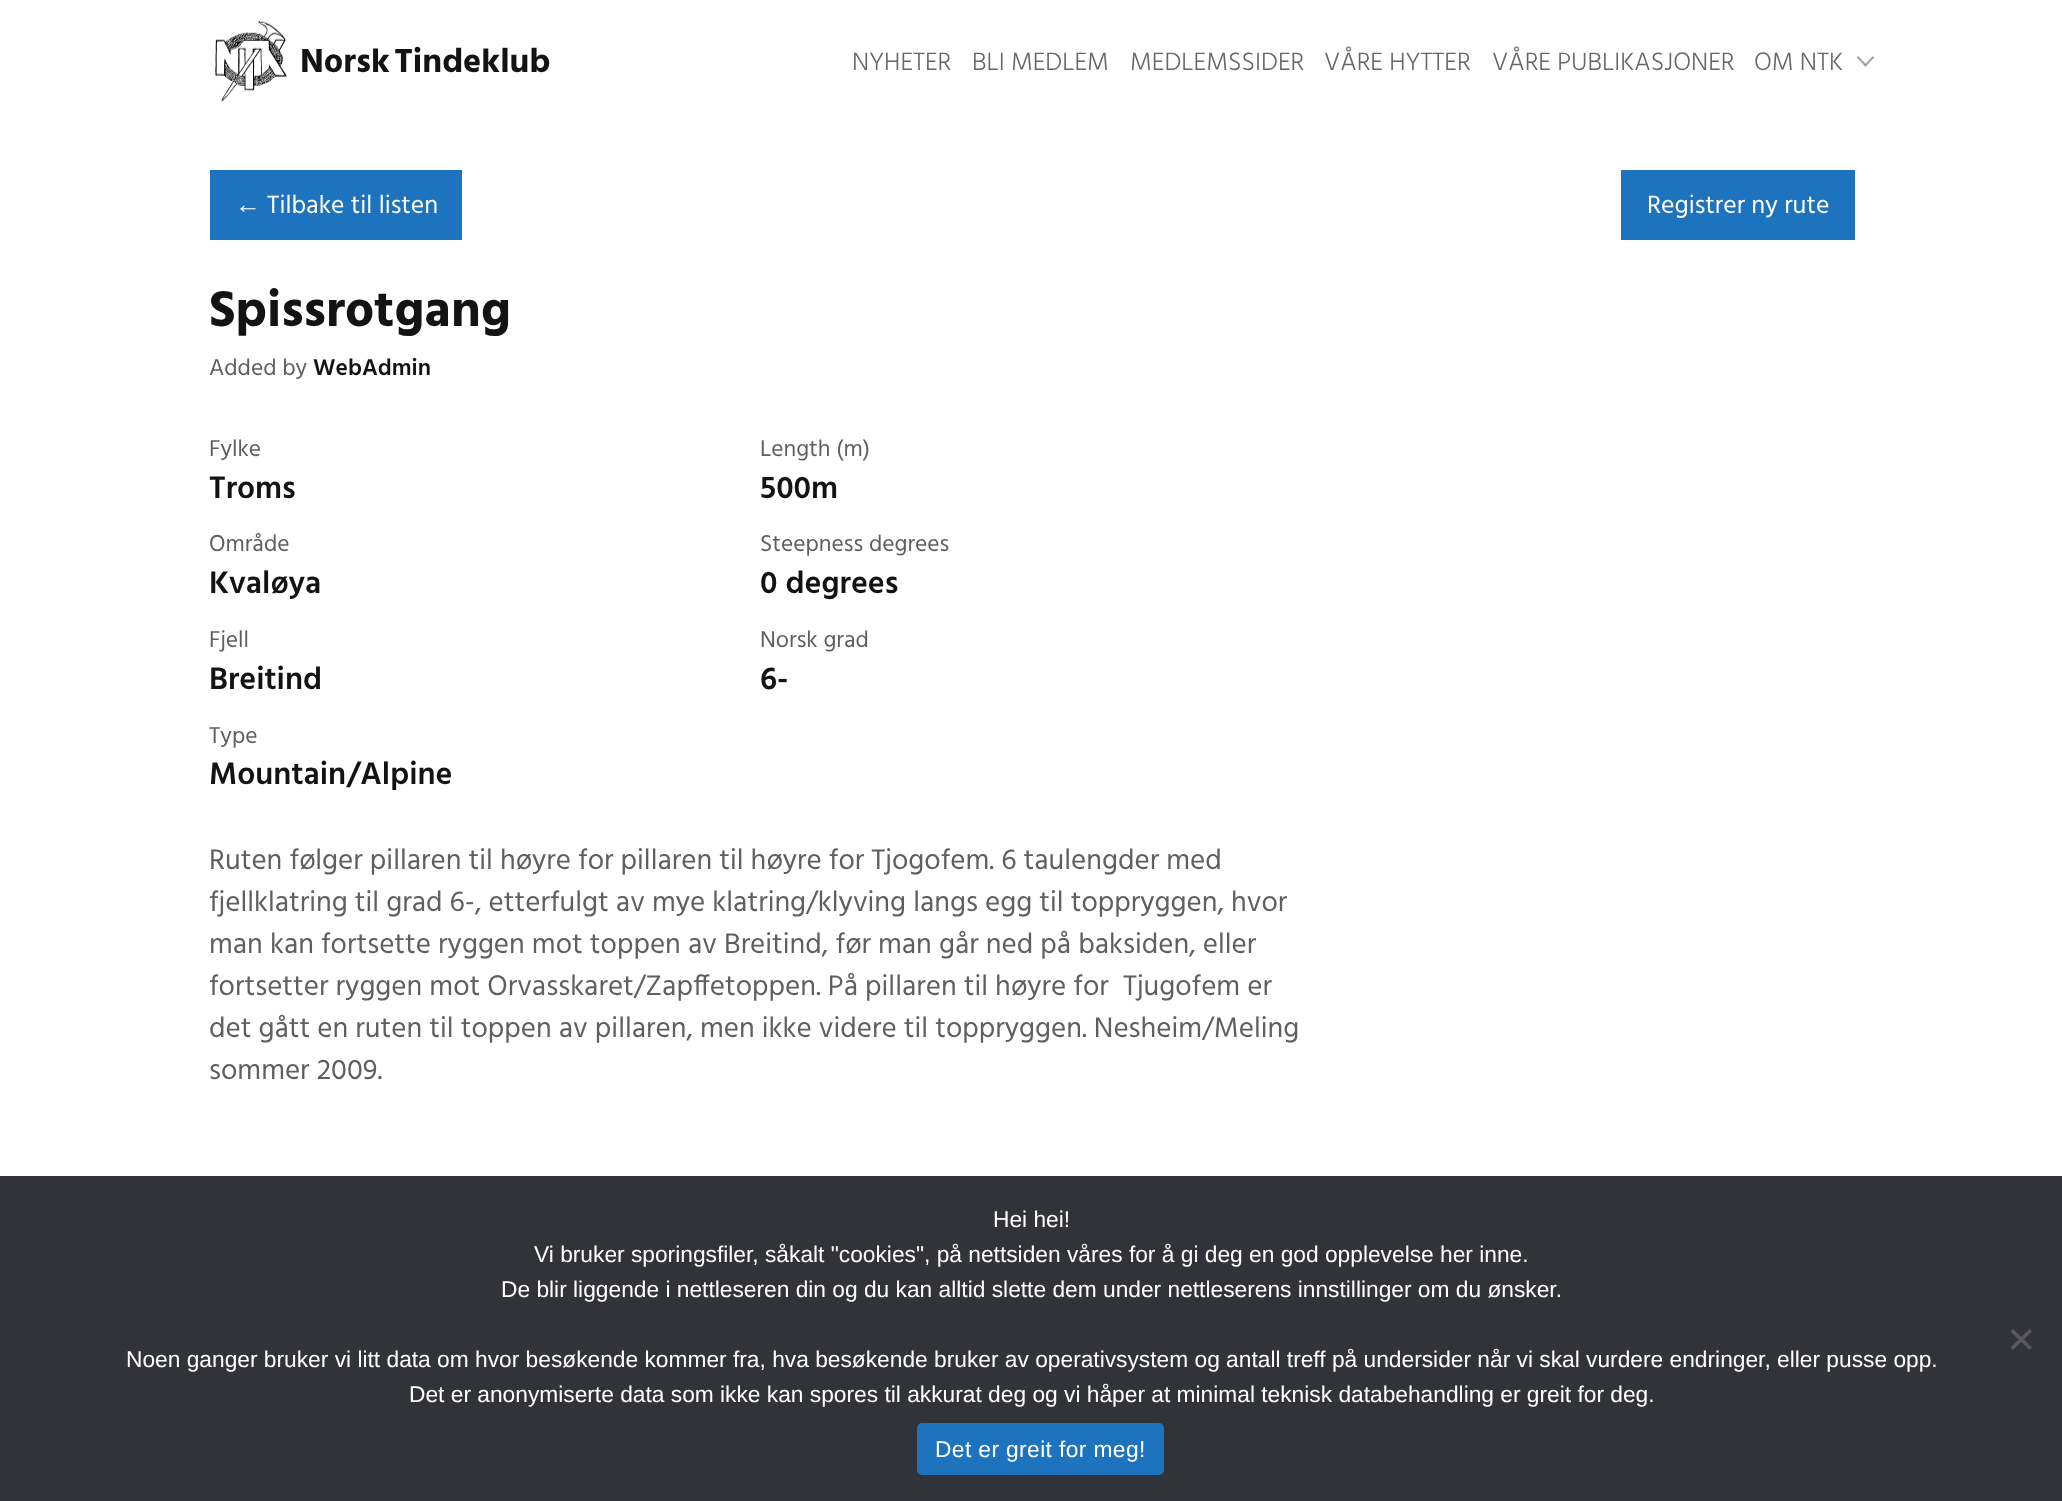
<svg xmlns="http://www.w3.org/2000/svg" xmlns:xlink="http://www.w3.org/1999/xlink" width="2062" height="1501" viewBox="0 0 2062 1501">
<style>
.cls-1{font:bold 34.25px Hind;fill:#131313}
.cls-2{font:300 25.75px Hind;fill:#666666}
.cls-3{font:25.75px Liberation Sans;fill:#ffffff}
.cls-4{font:25.75px Hind;fill:#ffffff}
.cls-5{font:bold 51.5px Hind;fill:#131313}
.cls-6{font:23.5px Hind;fill:#5f5f5f}
.cls-7{font:600 23.5px Hind;fill:#131313}
.cls-8{font:600 32px Hind;fill:#131313}
.cls-9{font:29.1px Hind;fill:#5f5f5f}
.cls-10{font:22.75px Liberation Sans;fill:#ffffff}
.cls-11{font:22.75px Liberation Sans;letter-spacing:0.4px;fill:#ffffff}
</style>
<rect width="100%" height="100%" fill="#ffffff"/>
<image xlink:href="image0.png" x="215" y="20" width="72" height="82"/>
<image xlink:href="image1.png" x="1856" y="56" width="19" height="11"/>
<rect fill="#1e73be" x="210" y="170" width="252" height="70"/>
<rect fill="#1e73be" x="1621" y="170" width="234" height="70"/>
<rect fill="#32323a" x="0" y="1176" width="2062" height="325"/>
<path fill="#59595d" d="M2029.5 1329L2032 1331.5L2013 1350L2010.5 1347.5Z"/>
<path fill="#59595d" d="M2010.5 1331.5L2013 1329L2032 1347.5L2029.5 1350Z"/>
<rect fill="#1e73be" x="917" y="1423" width="247" height="52" rx="5"/>
<text class="cls-1" x="300" y="72" word-spacing="-4">Norsk Tindeklub</text>
<text class="cls-2" x="852" y="70">NYHETER</text>
<text class="cls-2" x="972" y="70">BLI MEDLEM</text>
<text class="cls-2" x="1130" y="70">MEDLEMSSIDER</text>
<text class="cls-2" x="1324" y="70">VÅRE HYTTER</text>
<text class="cls-2" x="1492" y="70">VÅRE PUBLIKASJONER</text>
<text class="cls-2" x="1754" y="70">OM NTK</text>
<text class="cls-3" x="235" y="213">←</text>
<text class="cls-4" x="267" y="213">Tilbake til listen</text>
<text class="cls-4" x="1647" y="213">Registrer ny rute</text>
<text class="cls-5" x="209" y="326">Spissrotgang</text>
<text class="cls-6" x="209" y="375">Added by</text>
<text class="cls-7" x="313" y="375">WebAdmin</text>
<text class="cls-6" x="209" y="456">Fylke</text>
<text class="cls-8" x="209" y="498">Troms</text>
<text class="cls-6" x="209" y="551">Område</text>
<text class="cls-8" x="209" y="593">Kvaløya</text>
<text class="cls-6" x="209" y="647">Fjell</text>
<text class="cls-8" x="209" y="689">Breitind</text>
<text class="cls-6" x="209" y="743">Type</text>
<text class="cls-8" x="209" y="784">Mountain/Alpine</text>
<text class="cls-6" x="760" y="456">Length (m)</text>
<text class="cls-8" x="760" y="498">500m</text>
<text class="cls-6" x="760" y="551">Steepness degrees</text>
<text class="cls-8" x="760" y="593">0 degrees</text>
<text class="cls-6" x="760" y="647">Norsk grad</text>
<text class="cls-8" x="760" y="689">6-</text>
<text class="cls-9" xml:space="preserve"><tspan x="209" y="869">Ruten følger pillaren til høyre for pillaren til høyre for Tjogofem. 6 taulengder med</tspan><tspan x="209" y="911">fjellklatring til grad 6-, etterfulgt av mye klatring/klyving langs egg til toppryggen, hvor</tspan><tspan x="209" y="953">man kan fortsette ryggen mot toppen av Breitind, før man går ned på baksiden, eller</tspan><tspan x="209" y="995">fortsetter ryggen mot Orvasskaret/Zapffetoppen. På pillaren til høyre for  Tjugofem er</tspan><tspan x="209" y="1037">det gått en ruten til toppen av pillaren, men ikke videre til toppryggen. Nesheim/Meling</tspan><tspan x="209" y="1079">sommer 2009.</tspan></text>
<text class="cls-10" x="993" y="1227">Hei hei!</text>
<text class="cls-10" x="534" y="1262">Vi bruker sporingsfiler, såkalt "cookies", på nettsiden våres for å gi deg en god opplevelse her inne.</text>
<text class="cls-10" x="501" y="1297">De blir liggende i nettleseren din og du kan alltid slette dem under nettleserens innstillinger om du ønsker.</text>
<text class="cls-10" x="126" y="1367">Noen ganger bruker vi litt data om hvor besøkende kommer fra, hva besøkende bruker av operativsystem og antall treff på undersider når vi skal vurdere endringer, eller pusse opp.</text>
<text class="cls-10" x="409" y="1402">Det er anonymiserte data som ikke kan spores til akkurat deg og vi håper at minimal teknisk databehandling er greit for deg.</text>
<text class="cls-11" x="935" y="1457">Det er greit for meg!</text>
</svg>
